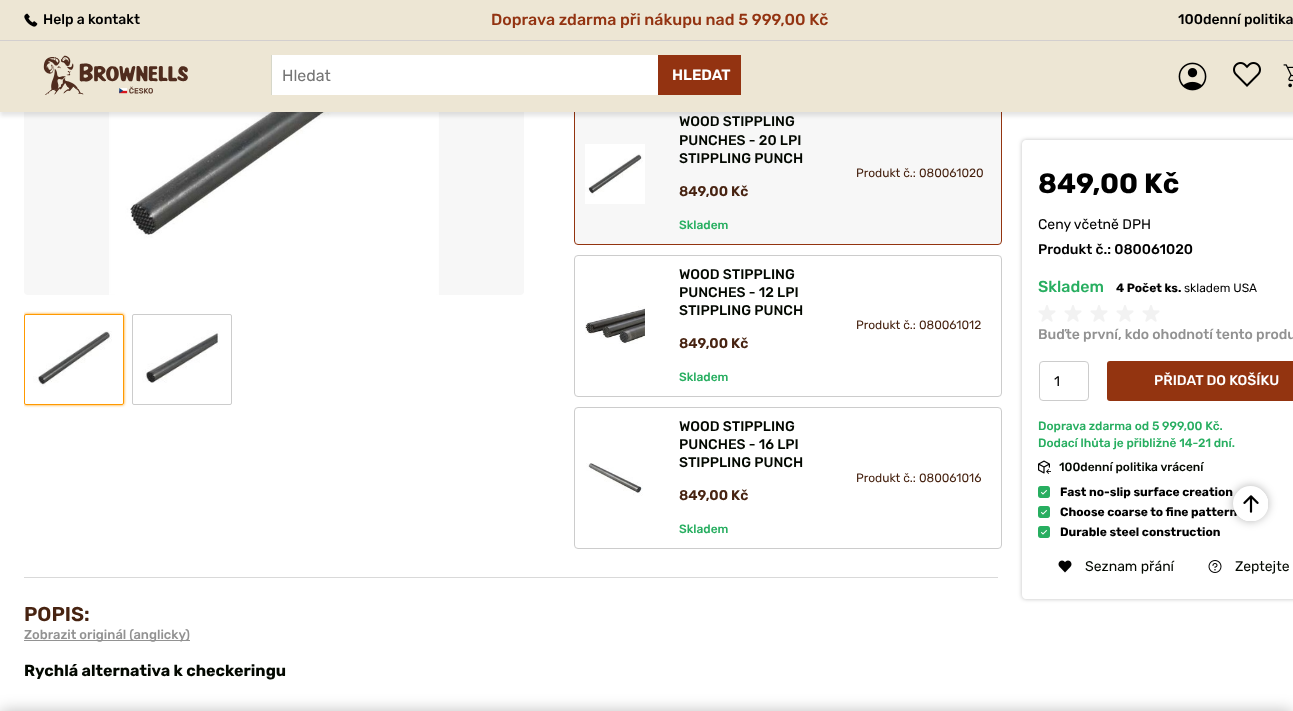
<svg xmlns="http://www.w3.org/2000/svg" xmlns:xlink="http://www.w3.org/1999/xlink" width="1293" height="711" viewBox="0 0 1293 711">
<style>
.cls-1{font:500 14px Rubik;fill:#000000}
.cls-2{font:500 16px Rubik;fill:#933311}
.cls-3{font:16px Rubik;fill:#757575}
.cls-4{font:600 15px Rubik;fill:#ffffff}
.cls-5{font:500 14px Rubik;fill:#030800}
.cls-6{font:600 14px Rubik;fill:#472311}
.cls-7{font:500 12px Rubik;fill:#27ae60}
.cls-8{font:12px Rubik;fill:#472311}
.cls-9{font:bold 28px Rubik;fill:#000000}
.cls-10{font:14px Rubik;fill:#000000}
.cls-11{font:500 16px Rubik;fill:#27ae60}
.cls-12{font:bold 12px Rubik;fill:#000000}
.cls-13{font:12px Rubik;fill:#000000}
.cls-14{font:500 14px Rubik;fill:#929292}
.cls-15{font:500 14px Rubik;fill:#ffffff}
.cls-16{font:500 12px Rubik;fill:#030800}
.cls-17{font:14px Rubik;fill:#030800}
.cls-18{font:600 20px Rubik;fill:#472311}
.cls-19{font:500 13px Rubik;fill:#929292}
.cls-20{font:bold 16px Rubik;fill:#030800}
</style>
<defs>
<clipPath id="clip1"><rect x="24" y="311" width="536" height="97"/></clipPath>
<clipPath id="clip2"><path d="M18 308H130V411H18ZM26 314H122C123 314 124 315 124 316V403C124 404 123 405 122 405H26C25 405 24 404 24 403V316C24 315 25 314 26 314Z" clip-rule="evenodd"/></clipPath>
<clipPath id="clip3"><path d="M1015 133H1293V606H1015ZM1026 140H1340C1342 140 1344 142 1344 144V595C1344 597 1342 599 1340 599H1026C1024 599 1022 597 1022 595V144C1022 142 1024 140 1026 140Z" clip-rule="evenodd"/></clipPath>
</defs>
<rect width="100%" height="100%" fill="#ffffff"/>
<rect fill="#f7f7f7" x="24" y="-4" width="500" height="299" rx="4"/>
<image xlink:href="image5.png" x="109" y="112" width="330" height="183"/>
<rect fill="#f7f7f7" stroke="#933410" x="574.5" y="102.5" width="427" height="142" rx="3.5"/>
<rect fill="#000000" fill-opacity="0.1" filter="blur(2px)" x="0" y="44" width="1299" height="72"/>
<rect fill="#ede6d4" x="0" y="0" width="1293" height="40"/>
<rect fill="#d3cfcf" x="0" y="40" width="1293" height="1"/>
<image xlink:href="image0.png" x="24" y="13" width="14" height="14"/>
<rect fill="#ede6d4" x="0" y="41" width="1293" height="71"/>
<image xlink:href="image1.png" x="43" y="55" width="145" height="40"/>
<rect fill="none" stroke="#d6d7c9" x="271.5" y="55.5" width="469" height="39"/>
<rect fill="#ffffff" x="272" y="55" width="386" height="40"/>
<rect fill="#933311" x="658" y="55" width="83" height="40"/>
<image xlink:href="image2.png" x="1178" y="62" width="29" height="29"/>
<image xlink:href="image3.png" x="1233" y="62" width="28" height="25"/>
<image xlink:href="image4.png" x="1283" y="64" width="10" height="24"/>
<g clip-path="url(#clip1)">
<g clip-path="url(#clip2)">
<rect fill="#ff9900" filter="blur(1.5px)" x="24" y="314" width="100" height="91" rx="2"/>
</g>
</g>
<rect fill="none" stroke="#ff9900" x="24.5" y="314.5" width="99" height="90" rx="1.5"/>
<image xlink:href="image6.png" x="33" y="330" width="79" height="57"/>
<rect fill="none" stroke="#cccccc" x="132.5" y="314.5" width="99" height="90" rx="1.5"/>
<image xlink:href="image7.png" x="142" y="330" width="78" height="53"/>
<image xlink:href="image8.png" x="585" y="144" width="60" height="60"/>
<rect fill="none" stroke="#cccccc" x="574.5" y="255.5" width="427" height="141" rx="3.5"/>
<image xlink:href="image9.png" x="585" y="306" width="60" height="38"/>
<rect fill="none" stroke="#cccccc" x="574.5" y="407.5" width="427" height="141" rx="3.5"/>
<image xlink:href="image10.png" x="586" y="463" width="57" height="33"/>
<g clip-path="url(#clip3)">
<rect fill="#000000" fill-opacity="0.25" filter="blur(2px)" x="1022" y="140" width="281" height="459" rx="4"/>
</g>
<image xlink:href="image11.png" x="1038" y="305" width="18" height="17"/>
<image xlink:href="image11.png" x="1064" y="305" width="18" height="17"/>
<image xlink:href="image11.png" x="1090" y="305" width="18" height="17"/>
<image xlink:href="image11.png" x="1116" y="305" width="18" height="17"/>
<image xlink:href="image11.png" x="1142" y="305" width="18" height="17"/>
<rect fill="none" stroke="#cccccc" x="1039.5" y="361.5" width="49" height="39" rx="3.5"/>
<rect fill="#933410" x="1107" y="361" width="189" height="40" rx="3"/>
<image xlink:href="image12.png" x="1038" y="460" width="13" height="14"/>
<image xlink:href="image13.png" x="1038" y="486" width="12" height="12"/>
<image xlink:href="image13.png" x="1038" y="506" width="12" height="12"/>
<image xlink:href="image13.png" x="1038" y="526" width="12" height="12"/>
<image xlink:href="image14.png" x="1058" y="560" width="14" height="13"/>
<image xlink:href="image15.png" x="1208" y="560" width="14" height="13"/>
<rect fill="#000000" fill-opacity="0.25" filter="blur(8px)" x="0" y="711" width="1293" height="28" rx="4"/>
<rect fill="#d9d9d9" x="24" y="577" width="974" height="1"/>
<rect fill="#929292" x="24" y="640" width="166" height="1"/>
<rect fill="#000000" fill-opacity="0.3" filter="blur(5px)" x="1233" y="486" width="35" height="35" rx="17.5"/>
<text class="cls-1" x="43" y="24">Help a kontakt</text>
<text class="cls-2" x="491" y="25">Doprava zdarma při nákupu nad 5 999,00 Kč</text>
<text class="cls-1" x="1178" y="24">100denní politika</text>
<text class="cls-3" x="282" y="81">Hledat</text>
<text class="cls-4" x="672" y="80">HLEDAT</text>
<text class="cls-5"><tspan x="679" y="126">WOOD STIPPLING</tspan><tspan x="679" y="145">PUNCHES - 20 LPI</tspan><tspan x="679" y="163">STIPPLING PUNCH</tspan></text>
<text class="cls-6" x="679" y="196">849,00 Kč</text>
<text class="cls-7" x="679" y="229">Skladem</text>
<text class="cls-8" x="856" y="177">Produkt č.: 080061020</text>
<text class="cls-5"><tspan x="679" y="279">WOOD STIPPLING</tspan><tspan x="679" y="297">PUNCHES - 12 LPI</tspan><tspan x="679" y="315">STIPPLING PUNCH</tspan></text>
<text class="cls-6" x="679" y="348">849,00 Kč</text>
<text class="cls-7" x="679" y="381">Skladem</text>
<text class="cls-8" x="856" y="329">Produkt č.: 080061012</text>
<text class="cls-5"><tspan x="679" y="431">WOOD STIPPLING</tspan><tspan x="679" y="449">PUNCHES - 16 LPI</tspan><tspan x="679" y="467">STIPPLING PUNCH</tspan></text>
<text class="cls-6" x="679" y="500">849,00 Kč</text>
<text class="cls-7" x="679" y="533">Skladem</text>
<text class="cls-8" x="856" y="482">Produkt č.: 080061016</text>
<text class="cls-9" x="1038" y="193">849,00 Kč</text>
<text class="cls-10" x="1038" y="229">Ceny včetně DPH</text>
<text class="cls-1" x="1038" y="254">Produkt č.: 080061020</text>
<text class="cls-11" x="1038" y="292">Skladem</text>
<text class="cls-12" x="1116" y="292">4 Počet ks.</text>
<text class="cls-13" x="1184" y="292">skladem USA</text>
<text class="cls-14" x="1038" y="339">Buďte první, kdo ohodnotí tento produ</text>
<text class="cls-10" x="1054" y="386">1</text>
<text class="cls-15" x="1154" y="385">PŘIDAT DO KOŠÍKU</text>
<text class="cls-7"><tspan x="1038" y="430">Doprava zdarma od 5 999,00 Kč.</tspan><tspan x="1038" y="447">Dodací lhůta je přibližně 14-21 dní.</tspan></text>
<text class="cls-16" x="1059" y="471">100denní politika vrácení</text>
<text class="cls-12"><tspan x="1060" y="496">Fast no-slip surface creation</tspan><tspan x="1060" y="516">Choose coarse to fine pattern</tspan><tspan x="1060" y="536">Durable steel construction</tspan></text>
<text class="cls-17" x="1085" y="571">Seznam přání</text>
<text class="cls-17" x="1235" y="571">Zeptejte</text>
<text class="cls-18" x="24" y="621">POPIS:</text>
<text class="cls-19" x="24" y="639">Zobrazit originál (anglicky)</text>
<text class="cls-20" x="24" y="676">Rychlá alternativa k checkeringu</text>
<circle fill="#ffffff" cx="1250.5" cy="503.5" r="17.5"/>
<circle fill="#000000" cx="1251" cy="504" r="14"/>
<image xlink:href="image16.png" x="1236" y="490" width="32" height="31"/>
</svg>
